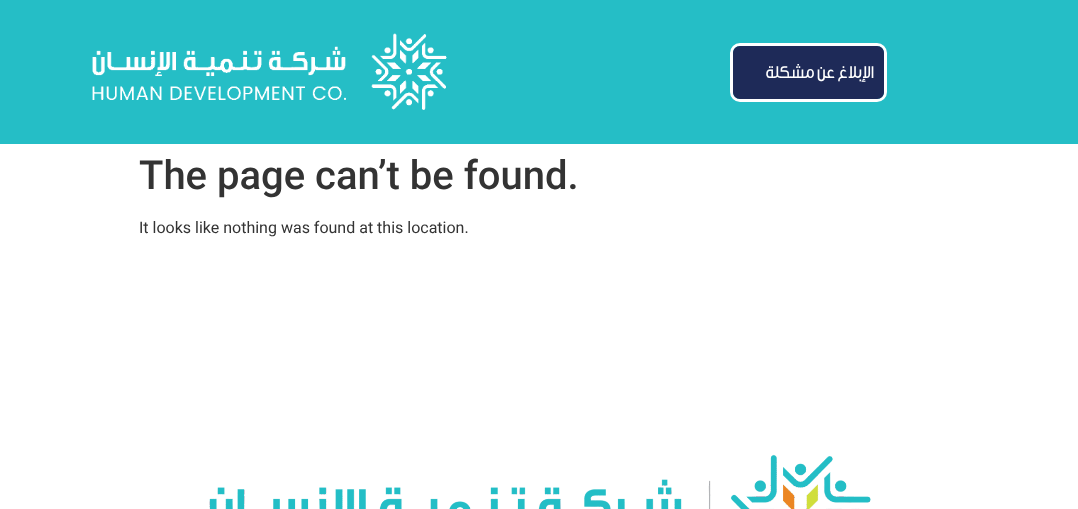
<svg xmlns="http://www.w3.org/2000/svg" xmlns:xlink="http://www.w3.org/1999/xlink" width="1078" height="509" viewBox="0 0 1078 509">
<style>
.cls-1{font:18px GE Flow;letter-spacing:0.75px;direction:rtl;fill:#ffffff}
.cls-2{font:500 40px Roboto;fill:#333333}
.cls-3{font:16px Roboto;fill:#333333}
</style>
<rect width="100%" height="100%" fill="#ffffff"/>
<rect fill="#25bec6" x="0" y="0" width="1078" height="144"/>
<image xlink:href="image0.png" x="92" y="33" width="355" height="77"/>
<rect fill="none" stroke="#ffffff" stroke-width="3" x="731.5" y="44.5" width="154" height="56" rx="8.5"/>
<path fill="#1e2a58" d="M740 46C736 46 733 49 733 53V92C733 96 736 99 740 99H877C881 99 884 96 884 92V53C884 49 881 46 877 46Z"/>
<image xlink:href="image1.png" x="209" y="454" width="662" height="55"/>
<text class="cls-1" x="874" y="78" word-spacing="-1">الإبلاغ عن مشكلة</text>
<text class="cls-2" x="139" y="189">The page can’t be found.</text>
<text class="cls-3" x="139" y="233">It looks like nothing was found at this location.</text>
</svg>
